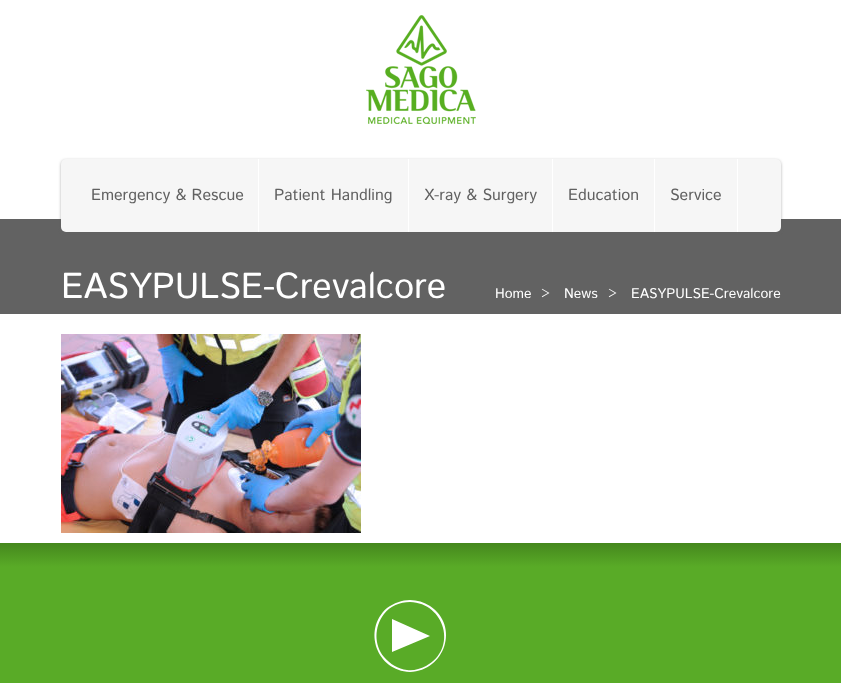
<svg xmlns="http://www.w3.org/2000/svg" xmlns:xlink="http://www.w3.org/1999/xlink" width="841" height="683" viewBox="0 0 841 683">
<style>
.cls-1{font:16px Istok Web;fill:#616161}
.cls-2{font:36px Istok Web;fill:#ffffff}
.cls-3{font:14px Istok Web;fill:#ffffff}
</style>
<defs>
<linearGradient id="g1" gradientUnits="userSpaceOnUse" x1="421" y1="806" x2="421" y2="543"><stop offset="0" stop-color="#59ab27"/><stop offset="0.91" stop-color="#59ab27"/><stop offset="1" stop-color="#45871d"/></linearGradient>
</defs>
<rect width="100%" height="100%" fill="#ffffff"/>
<image xlink:href="image0.png" x="366" y="15" width="110" height="109"/>
<rect fill="#626262" x="0" y="219" width="841" height="95"/>
<rect fill="#616161" fill-opacity="0.5" filter="blur(1.5px)" x="61" y="160" width="720" height="73" rx="5"/>
<rect fill="#f6f6f6" x="61" y="159" width="720" height="73" rx="5"/>
<rect fill="#ffffff" x="258" y="159" width="1" height="73"/>
<rect fill="#ffffff" x="408" y="159" width="1" height="73"/>
<rect fill="#ffffff" x="552" y="159" width="1" height="73"/>
<rect fill="#ffffff" x="654" y="159" width="1" height="73"/>
<rect fill="#ffffff" x="737" y="159" width="1" height="73"/>
<image xlink:href="image1.png" x="61" y="334" width="300" height="199"/>
<rect fill="url(#g1)" x="0" y="543" width="841" height="140"/>
<path fill="#ffffff" d="M392 619L430 636L392 652ZM410 672C377 671 362 630 387 608C394 603 402 600 410 600C417 600 424 602 430 606C460 626 445 671 410 672ZM410 602C400 602 390 606 384 614C374 627 374 645 384 657C390 664 398 669 407 670C413 671 420 669 426 666C458 649 445 603 410 602Z"/>
<text class="cls-1" x="91" y="200">Emergency &amp; Rescue</text>
<text class="cls-1" x="274" y="200">Patient Handling</text>
<text class="cls-1" x="424" y="200">X-ray &amp; Surgery</text>
<text class="cls-1" x="568" y="200">Education</text>
<text class="cls-1" x="670" y="200">Service</text>
<text class="cls-2" x="61" y="298">EASYPULSE-Crevalcore</text>
<text class="cls-3" x="495" y="298">Home</text>
<text class="cls-3" x="541" y="298">&gt;</text>
<text class="cls-3" x="564" y="298">News</text>
<text class="cls-3" x="608" y="298">&gt;</text>
<text class="cls-3" x="631" y="298">EASYPULSE-Crevalcore</text>
</svg>
